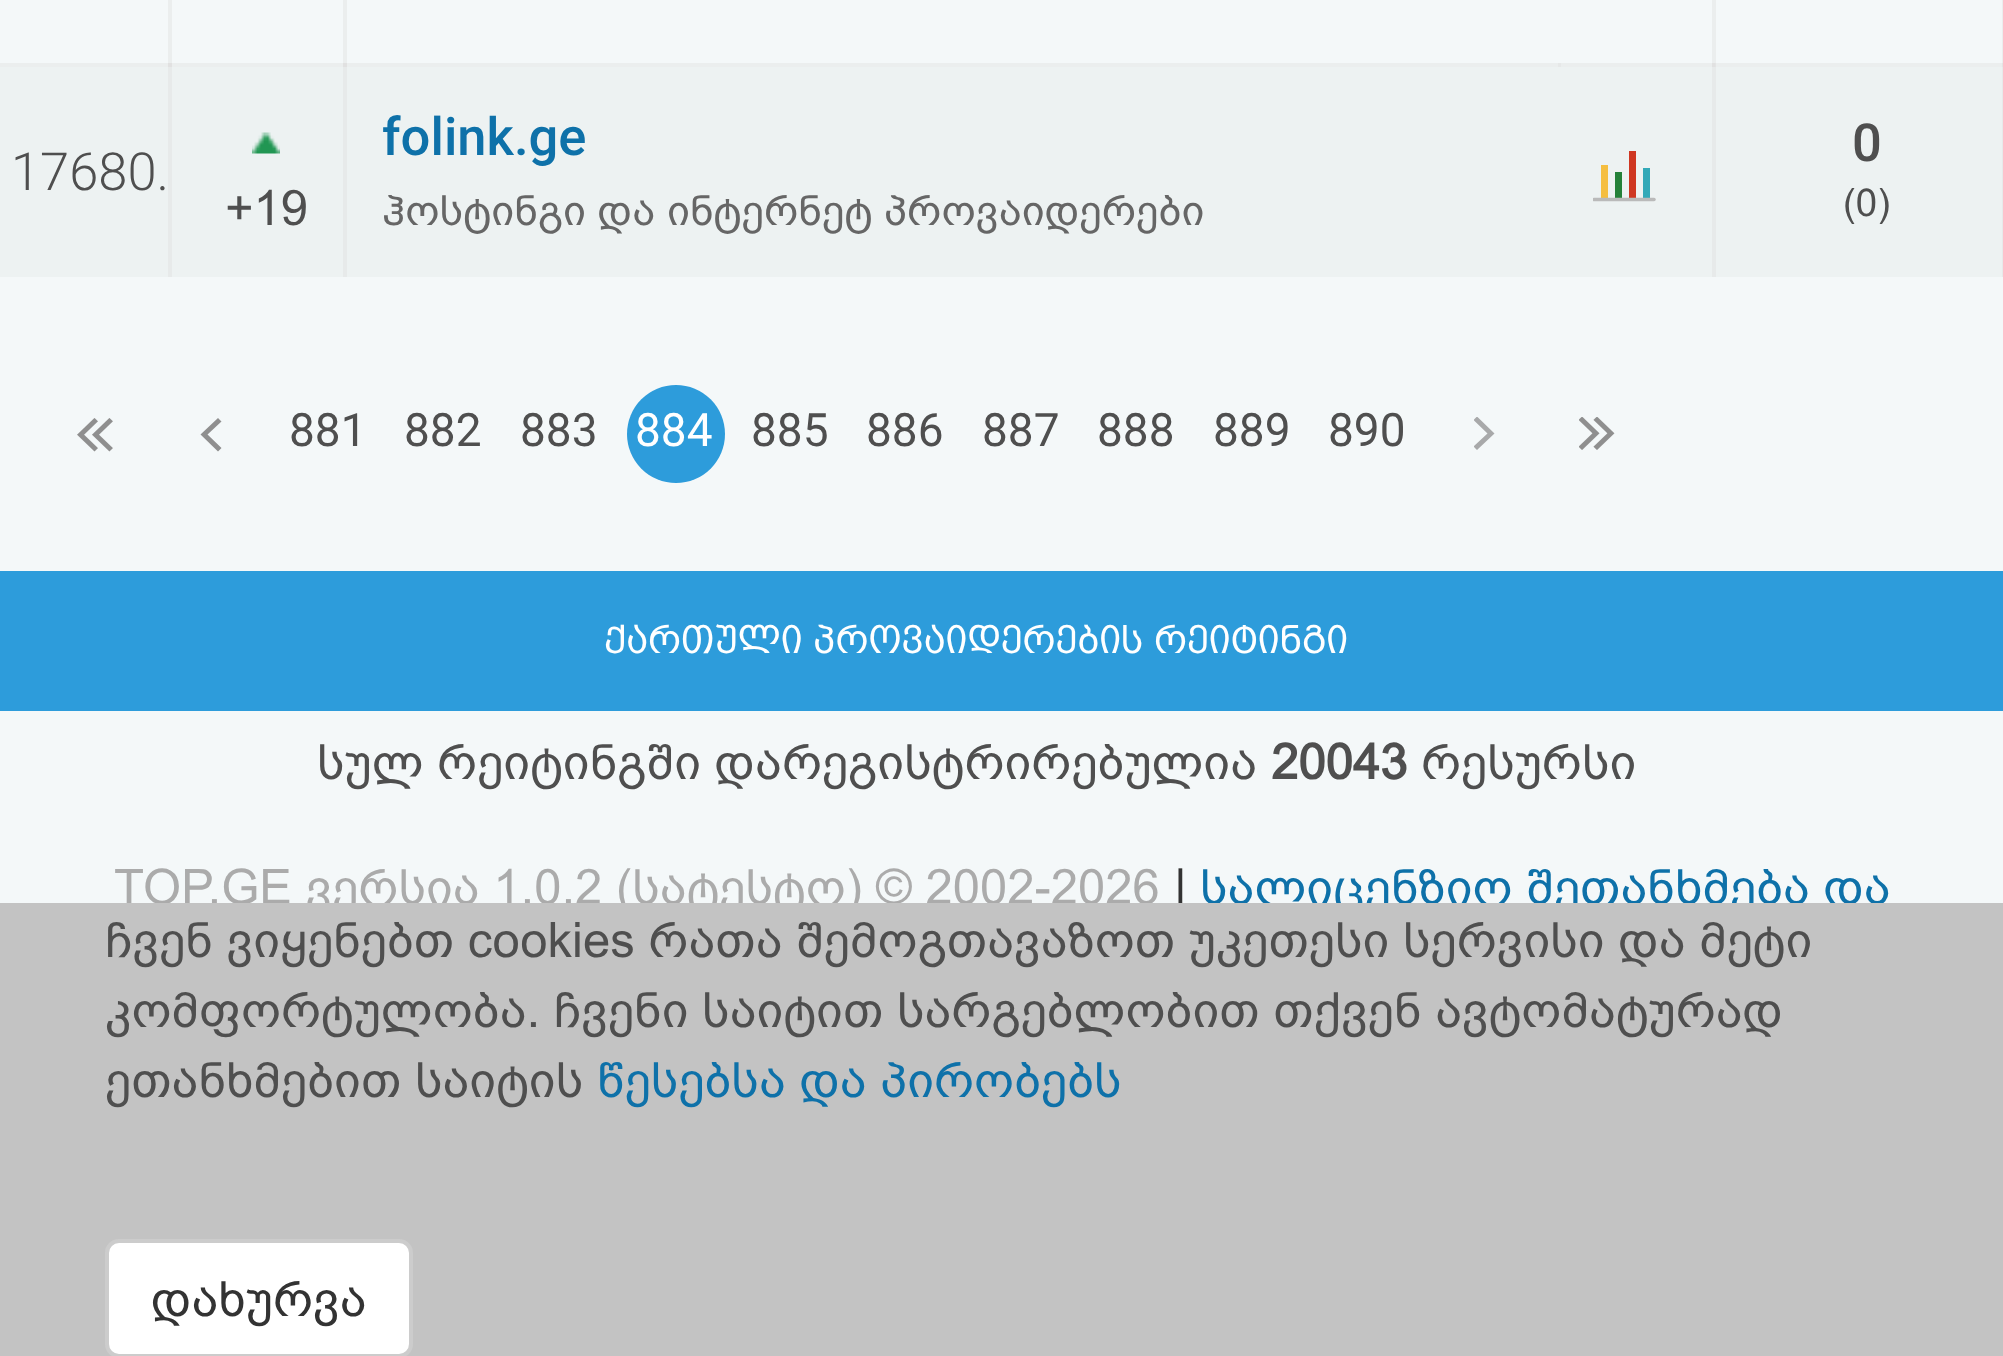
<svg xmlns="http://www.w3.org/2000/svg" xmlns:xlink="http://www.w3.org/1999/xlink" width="2003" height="1356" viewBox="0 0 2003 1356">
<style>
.cls-1{font:300 52.5px Roboto;fill:#4f4f4f}
.cls-2{font:500 52.5px Roboto;fill:#0e71a9}
.cls-3{font:42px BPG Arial;fill:#666666}
.cls-4{font:500 52.5px Roboto;fill:#4f4f4f}
.cls-5{font:38.5px BPG Arial;fill:#4f4f4f}
.cls-6{font:49px BPG Arial;fill:#4f4f4f}
.cls-7{font:46px Roboto;fill:#4f4f4f}
.cls-8{font:46px Roboto;fill:#ffffff}
.cls-9{font:38.5px 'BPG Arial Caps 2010';fill:#ffffff}
.cls-10{font:bold 49px BPG Arial;fill:#4f4f4f}
.cls-11{font:49px BPG Arial;fill:#ababab}
.cls-12{font:49px BPG Arial;fill:#333333}
.cls-13{font:49px BPG Arial;fill:#0e71a9}
</style>
<defs>
<clipPath id="clip1"><rect x="1593" y="151" width="63" height="52"/></clipPath>
<clipPath id="clip2"><rect x="1474" y="417" width="21" height="35"/></clipPath>
</defs>
<rect width="100%" height="100%" fill="#f4f8f9"/>
<rect fill="#ebeeee" x="168" y="0" width="4" height="67"/>
<rect fill="#ebeeee" x="343" y="0" width="4" height="67"/>
<rect fill="#ebeeee" x="1712" y="0" width="4" height="67"/>
<rect fill="#ebeeee" x="2002" y="0" width="1" height="67"/>
<rect fill="#ebeeee" x="0" y="63" width="2003" height="4"/>
<rect fill="#e1e1e1" x="168" y="63" width="4" height="4"/>
<rect fill="#e1e1e1" x="343" y="63" width="4" height="4"/>
<rect fill="#e6e8e8" x="1558" y="63" width="3" height="4"/>
<rect fill="#edf2f2" x="0" y="67" width="2002" height="210"/>
<rect fill="#e7eaea" x="168" y="67" width="4" height="210"/>
<rect fill="#e7eaea" x="343" y="67" width="4" height="210"/>
<rect fill="#e7eaea" x="1712" y="67" width="4" height="210"/>
<rect fill="#e7eaea" x="2002" y="67" width="1" height="210"/>
<rect fill="#f5be40" x="1601" y="165" width="7" height="35"/>
<rect fill="#248139" x="1615" y="172" width="7" height="28"/>
<rect fill="#cf3722" x="1629" y="151" width="7" height="49"/>
<rect fill="#32a9b8" x="1643" y="168" width="7" height="32"/>
<g clip-path="url(#clip1)">
<path fill="none" stroke="#bababa" stroke-width="3.5" stroke-linecap="round" stroke-linejoin="round" d="M1594 199.5H1654"/>
</g>
<rect fill="#e3e4e4" x="1712" y="63" width="4" height="4"/>
<rect fill="#e1e1e1" x="1712" y="63" width="3" height="4"/>
<rect fill="#e3e4e4" x="2002" y="63" width="1" height="4"/>
<image xlink:href="image0.png" x="252" y="132" width="28" height="22"/>
<image xlink:href="image1.png" x="77" y="418" width="36" height="34"/>
<path fill="#8f8f8f" d="M221.5 448L218 451.5L200.5 434.5L218 418L221.5 421.5L207.5 434.5Z"/>
<circle fill="#2d9cdb" cx="676" cy="434" r="49"/>
<g clip-path="url(#clip2)">
<path fill="#a8a9aa" d="M1473.5 420L1477 416.5L1494.5 433.5L1477 450L1473.5 446.5L1487.5 433.5Z"/>
</g>
<image xlink:href="image2.png" x="1579" y="417" width="36" height="33"/>
<rect fill="#2d9cdb" x="0" y="571" width="2003" height="140"/>
<text class="cls-1" x="11" y="190">17680.</text>
<text class="cls-2" x="382" y="155">folink.ge</text>
<text class="cls-3" x="382" y="225">ჰოსტინგი და ინტერნეტ პროვაიდერები</text>
<text class="cls-4" x="1852" y="161">0</text>
<text class="cls-5" x="1843" y="216">(0)</text>
<text class="cls-6" x="225" y="225">+19</text>
<text class="cls-7" x="289" y="446">881</text>
<text class="cls-7" x="404" y="446">882</text>
<text class="cls-7" x="520" y="446">883</text>
<text class="cls-8" x="635" y="446">884</text>
<text class="cls-7" x="751" y="446">885</text>
<text class="cls-7" x="866" y="446">886</text>
<text class="cls-7" x="982" y="446">887</text>
<text class="cls-7" x="1097" y="446">888</text>
<text class="cls-7" x="1213" y="446">889</text>
<text class="cls-7" x="1328" y="446">890</text>
<text class="cls-9" x="604" y="653">ქართული პროვაიდერების რეიტინგი</text>
<text class="cls-6" x="317" y="779">სულ რეიტინგში დარეგისტრირებულია</text>
<text class="cls-10" x="1271" y="779">20043</text>
<text class="cls-6" x="1421" y="779">რესურსი</text>
<text class="cls-11" x="114" y="904">TOP.GE ვერსია 1.0.2 (სატესტო) © 2002-2026</text>
<text class="cls-12" x="1174" y="904">|</text>
<text class="cls-13" x="1200" y="904">სალიცენზიო შეთანხმება და</text>
<rect fill="#c3c3c3" x="0" y="903" width="2003" height="453"/>
<text class="cls-6"><tspan x="105" y="957">ჩვენ ვიყენებთ cookies რათა შემოგთავაზოთ უკეთესი სერვისი და მეტი</tspan><tspan x="105" y="1027">კომფორტულობა. ჩვენი საიტით სარგებლობით თქვენ ავტომატურად</tspan><tspan x="105" y="1097">ეთანხმებით საიტის</tspan></text>
<text class="cls-13" x="597" y="1097">წესებსა და პირობებს</text>
<rect fill="#ffffff" stroke="#cccccc" stroke-width="4" x="107" y="1241" width="304" height="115" rx="12"/>
<text class="cls-12" x="151" y="1316">დახურვა</text>
</svg>
